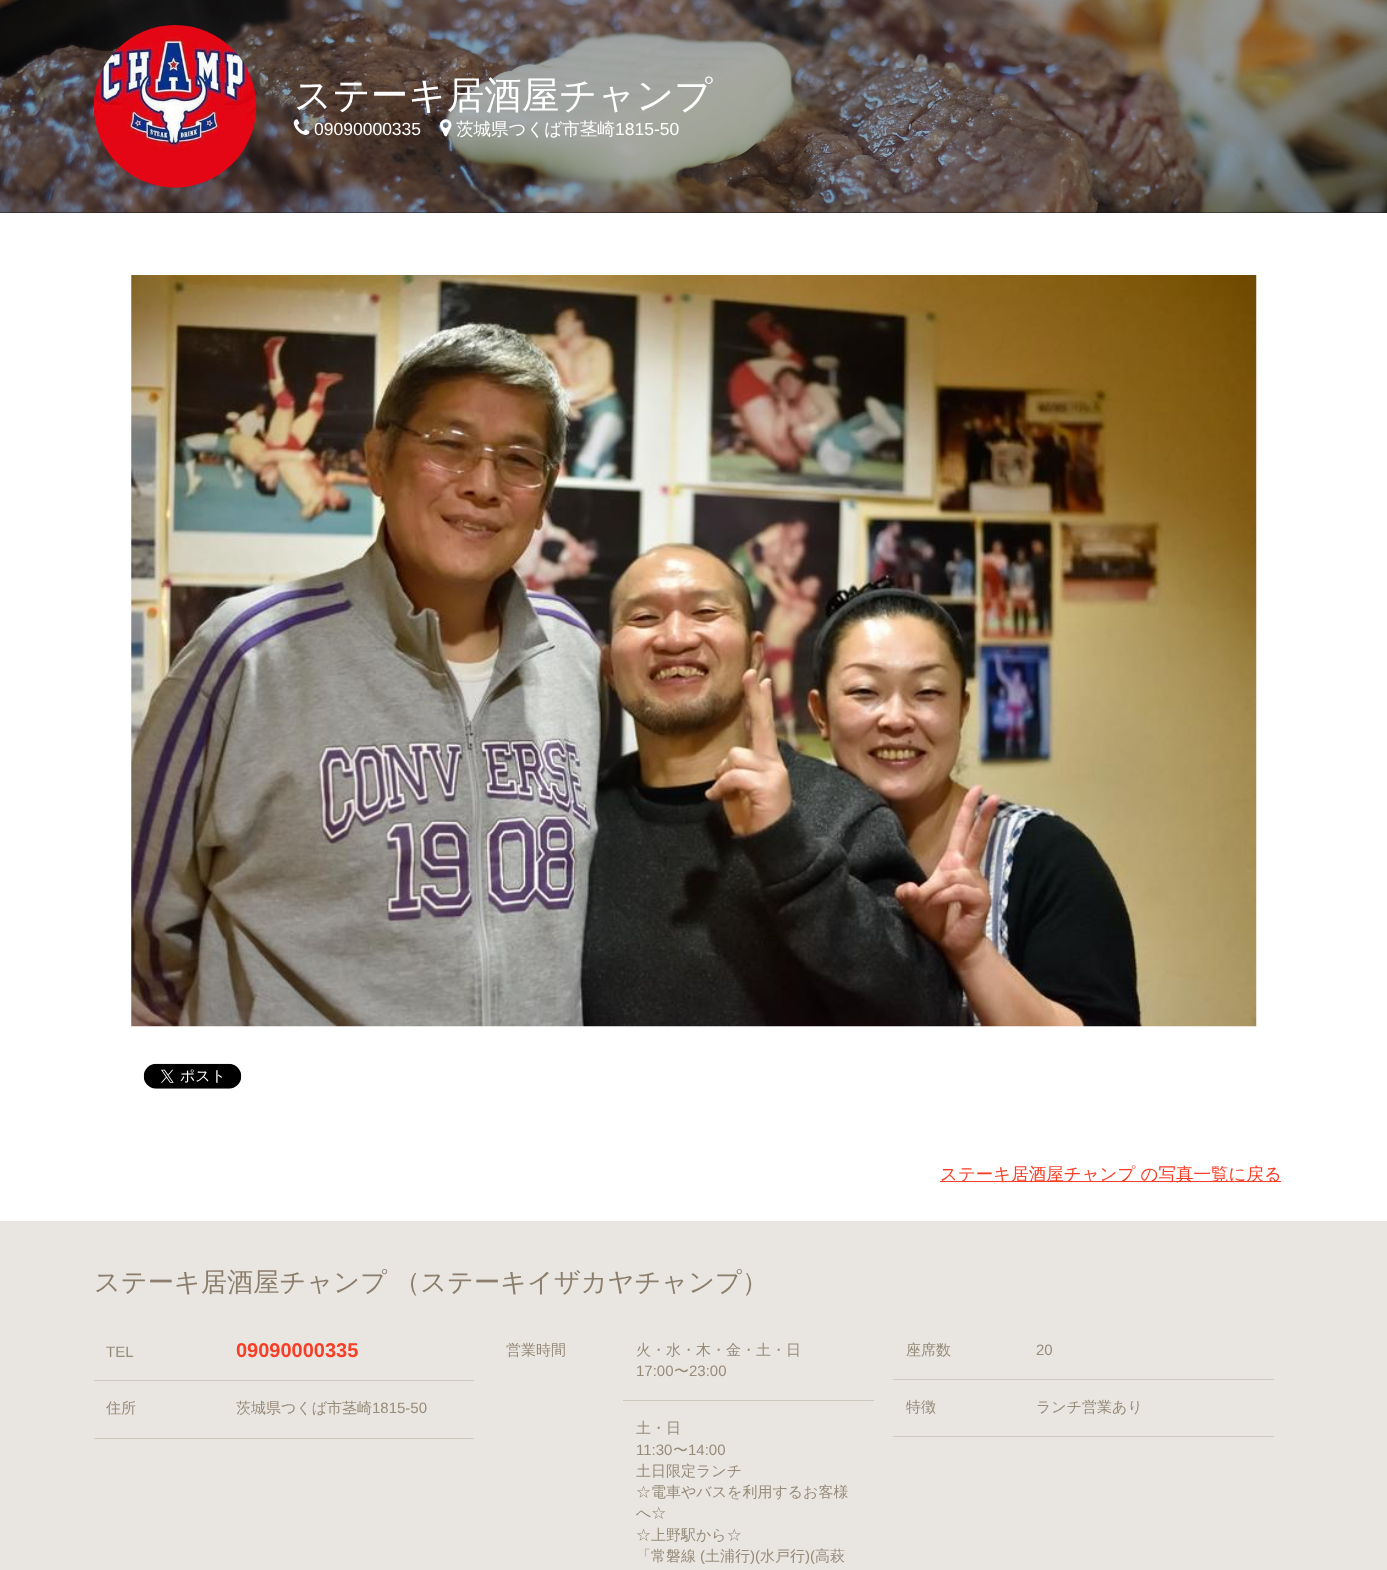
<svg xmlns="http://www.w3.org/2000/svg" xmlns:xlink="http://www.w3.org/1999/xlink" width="1387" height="1570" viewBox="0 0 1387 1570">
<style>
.cls-1{font:500 37.5px WenQuanYi Zen Hei;fill:#ffffff}
.cls-2{font:17.5px Liberation Sans;fill:#ffffff}
.cls-3{font:500 17.5px WenQuanYi Zen Hei;fill:#ffffff}
.cls-4{font:500 17.5px WenQuanYi Zen Hei;fill:#f83e26}
.cls-5{font:500 26.25px WenQuanYi Zen Hei;fill:#8c7e6c}
.cls-6{font:15px Liberation Sans;fill:#978b7a}
.cls-7{font:bold 20px Liberation Sans;fill:#f83e26}
.cls-8{font:500 15px WenQuanYi Zen Hei;fill:#978b7a}
</style>
<rect width="100%" height="100%" fill="#ffffff"/>
<rect fill="#181818" x="0" y="212" width="1387" height="1"/>
<image xlink:href="image0.png" x="0" y="0" width="1387" height="213"/>
<image xlink:href="image1.png" x="93" y="25" width="164" height="163"/>
<image xlink:href="image2.png" x="293" y="119" width="17" height="16"/>
<image xlink:href="image3.png" x="440" y="119" width="12" height="18"/>
<image xlink:href="image4.png" x="131" y="275" width="1126" height="752"/>
<image xlink:href="image5.png" x="143" y="1063" width="99" height="26"/>
<rect fill="#f83e26" x="940" y="1181" width="341" height="1"/>
<rect fill="#e9e6e1" x="0" y="1221" width="1387" height="349"/>
<rect fill="#cec8bf" x="94" y="1380" width="380" height="1"/>
<rect fill="#cec8bf" x="94" y="1438" width="380" height="1"/>
<rect fill="#cec8bf" x="623" y="1400" width="251" height="1"/>
<rect fill="#cec8bf" x="893" y="1379" width="381" height="1"/>
<rect fill="#cec8bf" x="893" y="1436" width="381" height="1"/>
<text class="cls-1" x="294" y="108">ステーキ居酒屋チャンプ</text>
<text class="cls-2" x="314" y="135">09090000335</text>
<text class="cls-3" x="456" y="135">茨城県つくば市茎崎</text>
<text class="cls-2" x="615" y="135">1815-50</text>
<text class="cls-4" x="940" y="1180">ステーキ居酒屋チャンプ の写真一覧に戻る</text>
<text class="cls-5" x="94" y="1291" word-spacing="-1">ステーキ居酒屋チャンプ （ステーキイザカヤチャンプ）</text>
<text class="cls-6" x="106" y="1357">TEL</text>
<text class="cls-7" x="236" y="1357">09090000335</text>
<text class="cls-8" x="106" y="1413">住所</text>
<text class="cls-8" x="236" y="1413">茨城県つくば市茎崎</text>
<text class="cls-6" x="372" y="1413">1815-50</text>
<text class="cls-8" x="506" y="1355">営業時間</text>
<text class="cls-8" x="636" y="1355">火・水・木・金・土・日</text>
<text class="cls-6" x="636" y="1376">17:00</text>
<text class="cls-8" x="674" y="1376">〜</text>
<text class="cls-6" x="689" y="1376">23:00</text>
<text class="cls-8" x="636" y="1433">土・日</text>
<text class="cls-6" x="636" y="1455">11:30</text>
<text class="cls-8" x="673" y="1455">〜</text>
<text class="cls-6" x="688" y="1455">14:00</text>
<text class="cls-8"><tspan x="636" y="1476">土日限定ランチ</tspan><tspan x="636" y="1497">☆電車やバスを利用するお客様</tspan><tspan x="636" y="1518">へ☆</tspan><tspan x="636" y="1540">☆上野駅から☆</tspan><tspan x="636" y="1561">「常磐線</tspan></text>
<text class="cls-6" x="700" y="1561">(</text>
<text class="cls-8" x="705" y="1561">土浦行</text>
<text class="cls-6" x="750" y="1561">)(</text>
<text class="cls-8" x="760" y="1561">水戸行</text>
<text class="cls-6" x="805" y="1561">)(</text>
<text class="cls-8" x="815" y="1561">高萩</text>
<text class="cls-8" x="906" y="1355">座席数</text>
<text class="cls-6" x="1036" y="1355">20</text>
<text class="cls-8" x="906" y="1412">特徴</text>
<text class="cls-8" x="1036" y="1412">ランチ営業あり</text>
</svg>
